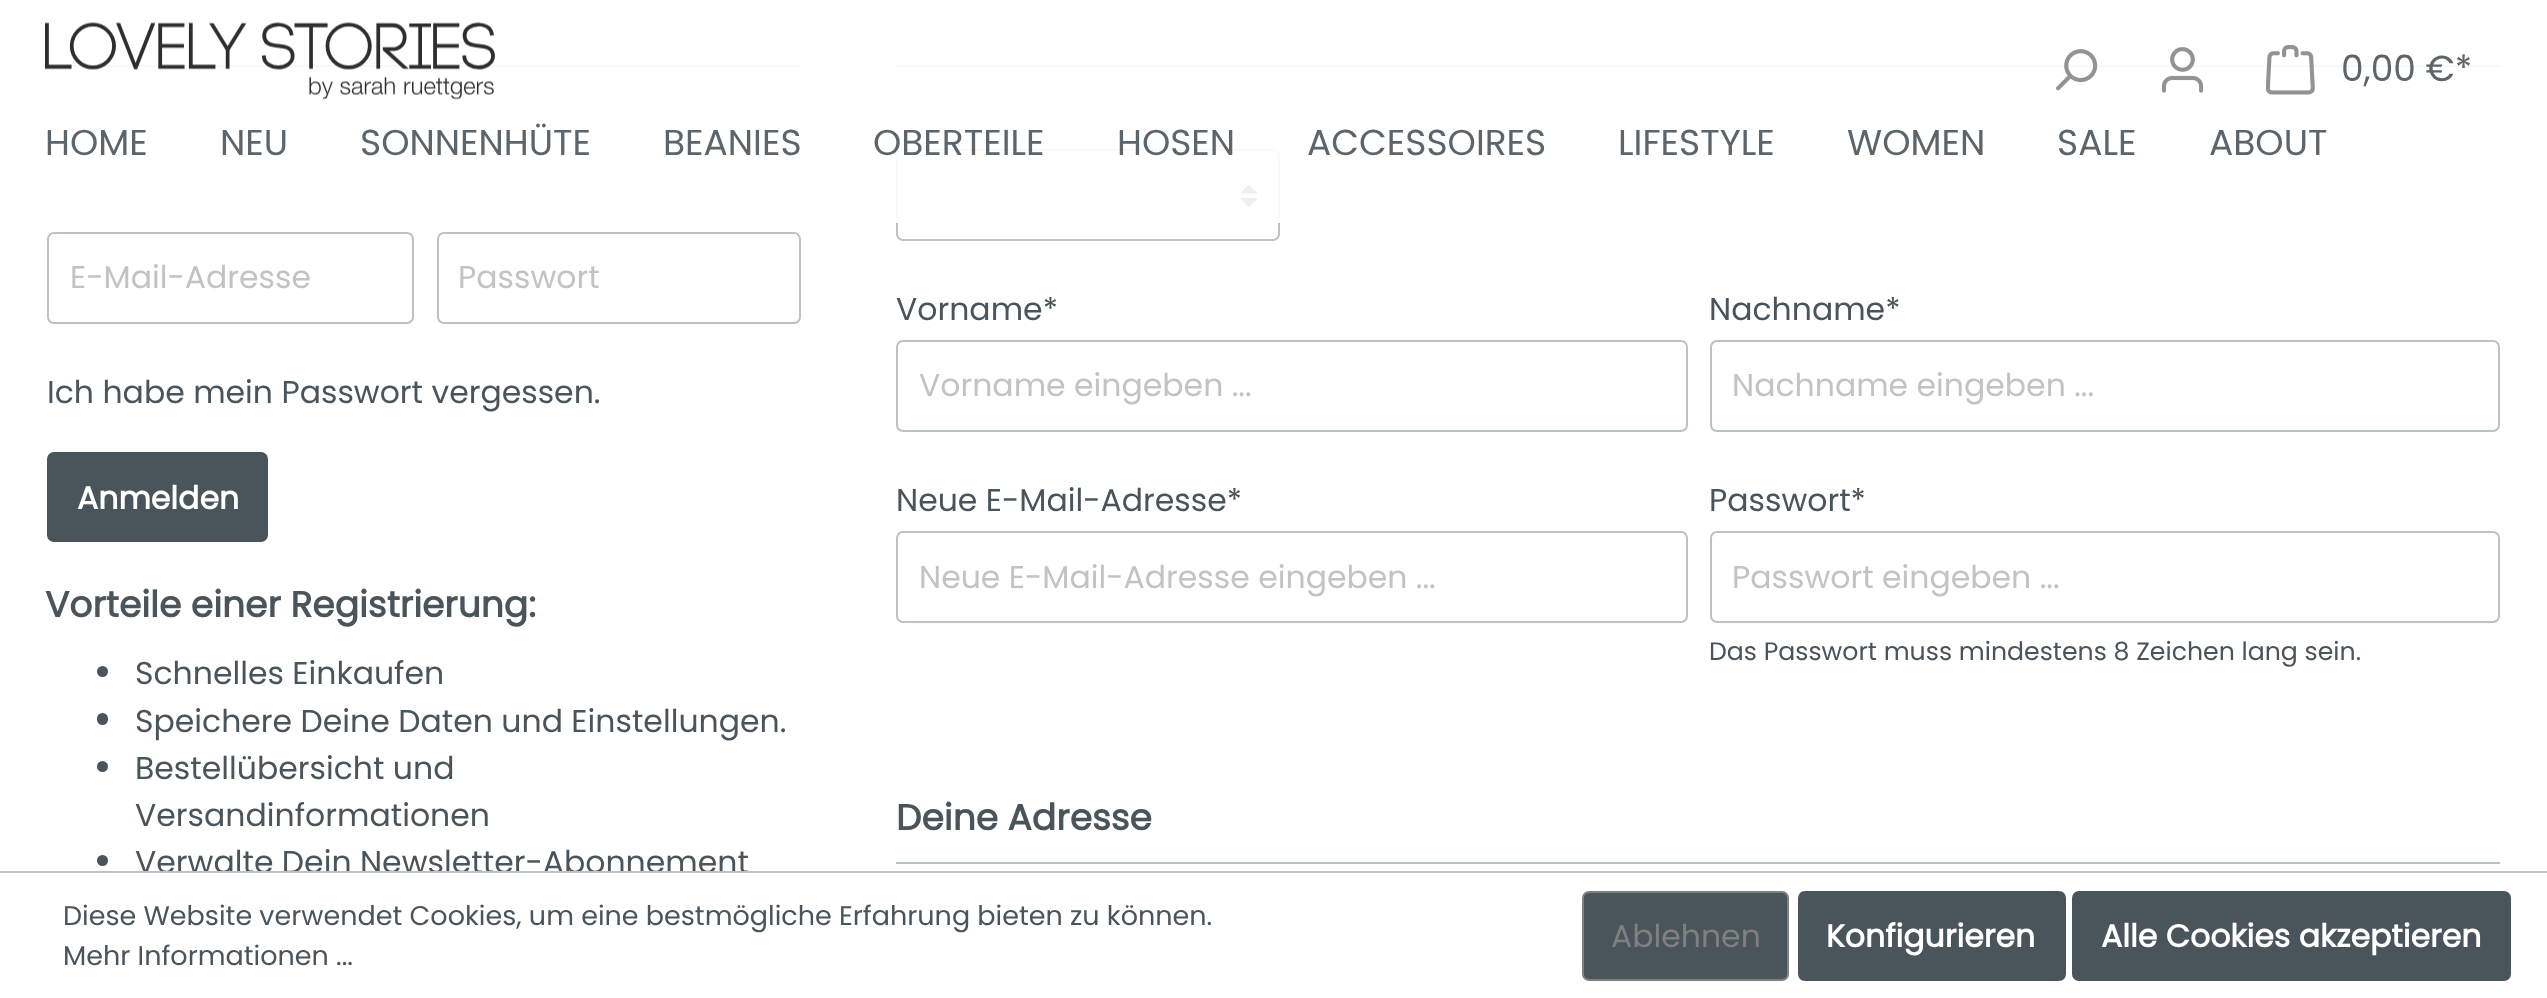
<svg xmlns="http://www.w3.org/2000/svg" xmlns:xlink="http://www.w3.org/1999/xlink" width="2547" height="998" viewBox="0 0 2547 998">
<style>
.cls-1{font:36px Poppins;fill:#5c656b}
.cls-2{font:31.5px Poppins;fill:#c3c3c3}
.cls-3{font:31.5px Poppins;fill:#4a545b}
.cls-4{font:bold 31.5px Poppins;fill:#ffffff}
.cls-5{font:bold 36px Poppins;fill:#4a545b}
.cls-6{font:25.2px Poppins;fill:#4a545b}
.cls-7{font:27px Poppins;fill:#4a545b}
.cls-8{font:31.5px Poppins;fill:#808080}
</style>
<rect width="100%" height="100%" fill="#ffffff"/>
<rect fill="#bcc1c7" x="47" y="65" width="754" height="2"/>
<rect fill="#bcc1c7" x="896" y="65" width="1604" height="2"/>
<path fill="#4a545b" d="M1249 184.5L1240 193.5H1258ZM1249 207L1240 198H1258Z"/>
<rect fill="none" stroke="#bcc1c7" stroke-width="2" x="897" y="150" width="382" height="90" rx="6"/>
<rect fill="#ffffff" fill-opacity="0.9" x="47" y="65" width="2453" height="158"/>
<image xlink:href="image0.png" x="45" y="22" width="450" height="78"/>
<image xlink:href="image1.png" x="2056" y="49" width="42" height="42"/>
<image xlink:href="image2.png" x="2161" y="47" width="43" height="46"/>
<image xlink:href="image3.png" x="2266" y="45" width="49" height="50"/>
<rect fill="none" stroke="#bcc1c7" stroke-width="2" x="48" y="233" width="365" height="90" rx="6"/>
<rect fill="none" stroke="#bcc1c7" stroke-width="2" x="438" y="233" width="362" height="90" rx="6"/>
<rect fill="#4a545b" stroke="#4a545b" stroke-width="2" x="48" y="453" width="219" height="88" rx="6"/>
<circle fill="#4a545b" cx="102.5" cy="671.5" r="5.5"/>
<rect fill="#4a545b" x="97" y="713" width="11" height="12" rx="5.5"/>
<circle fill="#4a545b" cx="102.5" cy="766.5" r="5.5"/>
<circle fill="#4a545b" cx="102.5" cy="860.5" r="5.5"/>
<rect fill="none" stroke="#bcc1c7" stroke-width="2" x="897" y="341" width="790" height="90" rx="6"/>
<rect fill="none" stroke="#bcc1c7" stroke-width="2" x="1711" y="341" width="788" height="90" rx="6"/>
<rect fill="none" stroke="#bcc1c7" stroke-width="2" x="897" y="532" width="790" height="90" rx="6"/>
<rect fill="none" stroke="#bcc1c7" stroke-width="2" x="1711" y="532" width="788" height="90" rx="6"/>
<rect fill="#bcc1c7" x="896" y="862" width="1604" height="2"/>
<rect fill="#4a545b" stroke="#808080" stroke-width="2" x="1583" y="892" width="205" height="88" rx="6"/>
<rect fill="#4a545b" stroke="#4a545b" stroke-width="2" x="1799" y="892" width="266" height="88" rx="6"/>
<rect fill="#4a545b" stroke="#4a545b" stroke-width="2" x="2073" y="892" width="437" height="88" rx="6"/>
<text class="cls-1" x="2341" y="81">0,00 €*</text>
<text class="cls-1" x="45" y="155">HOME</text>
<text class="cls-1" x="220" y="155">NEU</text>
<text class="cls-1" x="360" y="155">SONNENHÜTE</text>
<text class="cls-1" x="663" y="155">BEANIES</text>
<text class="cls-1" x="873" y="155">OBERTEILE</text>
<text class="cls-1" x="1117" y="155">HOSEN</text>
<text class="cls-1" x="1307" y="155">ACCESSOIRES</text>
<text class="cls-1" x="1618" y="155">LIFESTYLE</text>
<text class="cls-1" x="1847" y="155">WOMEN</text>
<text class="cls-1" x="2057" y="155">SALE</text>
<text class="cls-1" x="2209" y="155">ABOUT</text>
<text class="cls-2" x="70" y="288">E-Mail-Adresse</text>
<text class="cls-2" x="458" y="288">Passwort</text>
<text class="cls-3" x="47" y="403">Ich habe mein Passwort vergessen.</text>
<text class="cls-4" x="77" y="509">Anmelden</text>
<text class="cls-5" x="45" y="617">Vorteile einer Registrierung:</text>
<text class="cls-3"><tspan x="135" y="684">Schnelles Einkaufen</tspan><tspan x="135" y="732">Speichere Deine Daten und Einstellungen.</tspan><tspan x="135" y="779">Bestellübersicht und</tspan><tspan x="135" y="826">Versandinformationen</tspan><tspan x="135" y="873">Verwalte Dein Newsletter-Abonnement</tspan></text>
<text class="cls-3" x="896" y="320">Vorname*</text>
<text class="cls-2" x="919" y="396">Vorname eingeben ...</text>
<text class="cls-3" x="1709" y="320">Nachname*</text>
<text class="cls-2" x="1732" y="396">Nachname eingeben ...</text>
<text class="cls-3" x="896" y="511">Neue E-Mail-Adresse*</text>
<text class="cls-2" x="919" y="588">Neue E-Mail-Adresse eingeben ...</text>
<text class="cls-3" x="1709" y="511">Passwort*</text>
<text class="cls-2" x="1732" y="588">Passwort eingeben ...</text>
<text class="cls-6" x="1709" y="660">Das Passwort muss mindestens 8 Zeichen lang sein.</text>
<text class="cls-5" x="896" y="830">Deine Adresse</text>
<rect fill="#ffffff" x="164" y="873" width="546" height="1"/>
<rect fill="#bcc1c7" x="0" y="871" width="2547" height="2"/>
<text class="cls-7"><tspan x="63" y="925">Diese Website verwendet Cookies, um eine bestmögliche Erfahrung bieten zu können.</tspan><tspan x="63" y="965">Mehr Informationen ...</tspan></text>
<text class="cls-8" x="1611" y="947">Ablehnen</text>
<text class="cls-4" x="1826" y="947">Konfigurieren</text>
<text class="cls-4" x="2101" y="947">Alle Cookies akzeptieren</text>
</svg>
